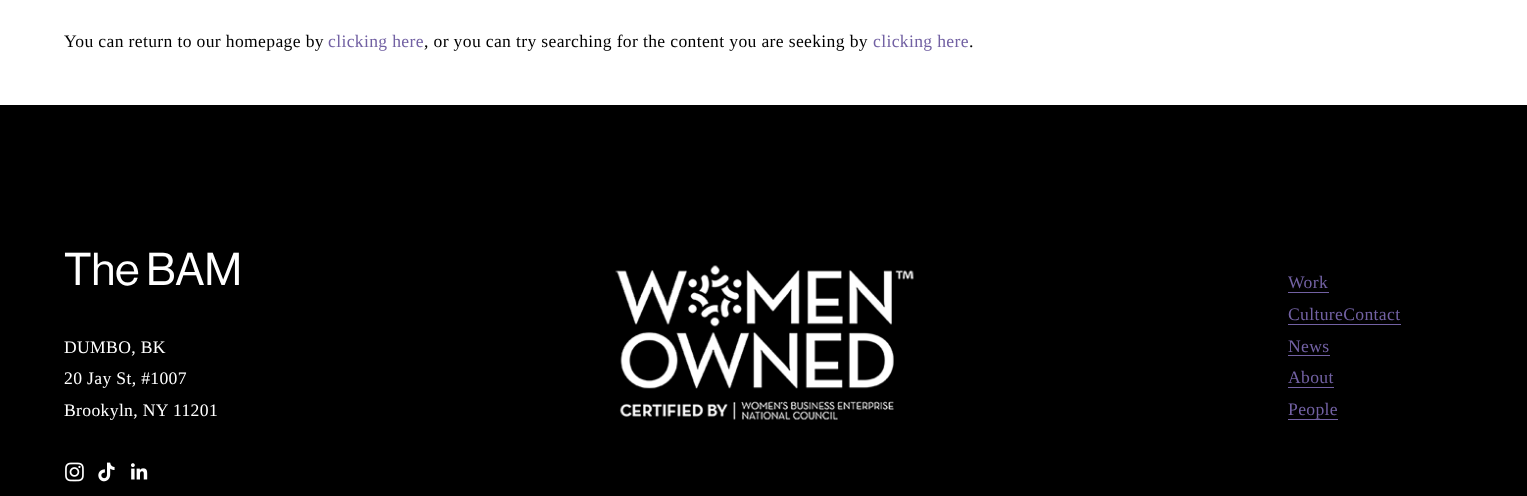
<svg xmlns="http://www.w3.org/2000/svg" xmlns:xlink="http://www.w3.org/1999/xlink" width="1527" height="496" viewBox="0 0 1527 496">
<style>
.cls-1{font:17.6px Liberation Serif;letter-spacing:0.35px;fill:#000000}
.cls-2{font:17.6px Liberation Serif;letter-spacing:0.35px;fill:#7261a3}
.cls-3{font:500 45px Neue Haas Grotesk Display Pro;fill:#ffffff}
.cls-4{font:17.6px Liberation Serif;letter-spacing:0.35px;fill:#ffffff}
</style>
<rect width="100%" height="100%" fill="#ffffff"/>
<rect fill="#000000" x="0" y="105" width="1527" height="391"/>
<image xlink:href="image0.png" x="615" y="265" width="299" height="155"/>
<rect fill="#7261a3" x="1288" y="292" width="41" height="1"/>
<rect fill="#7261a3" x="1288" y="324" width="113" height="1"/>
<rect fill="#7261a3" x="1288" y="355" width="42" height="1"/>
<rect fill="#7261a3" x="1288" y="387" width="46" height="1"/>
<rect fill="#7261a3" x="1288" y="419" width="50" height="1"/>
<image xlink:href="image1.png" x="65" y="462" width="19" height="20"/>
<image xlink:href="image2.png" x="98" y="462" width="17" height="20"/>
<image xlink:href="image3.png" x="131" y="463" width="17" height="17"/>
<text class="cls-1" x="64" y="47">You can return to our homepage by</text>
<text class="cls-2" x="328" y="47">clicking here</text>
<text class="cls-1" x="424" y="47">, or you can try searching for the content you are seeking by</text>
<text class="cls-2" x="873" y="47">clicking here</text>
<text class="cls-1" x="969" y="47">.</text>
<text class="cls-3" x="64" y="285">The BAM</text>
<text class="cls-4"><tspan x="64" y="353">DUMBO, BK</tspan><tspan x="64" y="384">20 Jay St, #1007</tspan><tspan x="64" y="416">Brookyln, NY 11201</tspan></text>
<text class="cls-2"><tspan x="1288" y="288">Work</tspan><tspan x="1288" y="320">CultureContact</tspan><tspan x="1288" y="352">News</tspan><tspan x="1288" y="383">About</tspan><tspan x="1288" y="415">People</tspan></text>
</svg>
